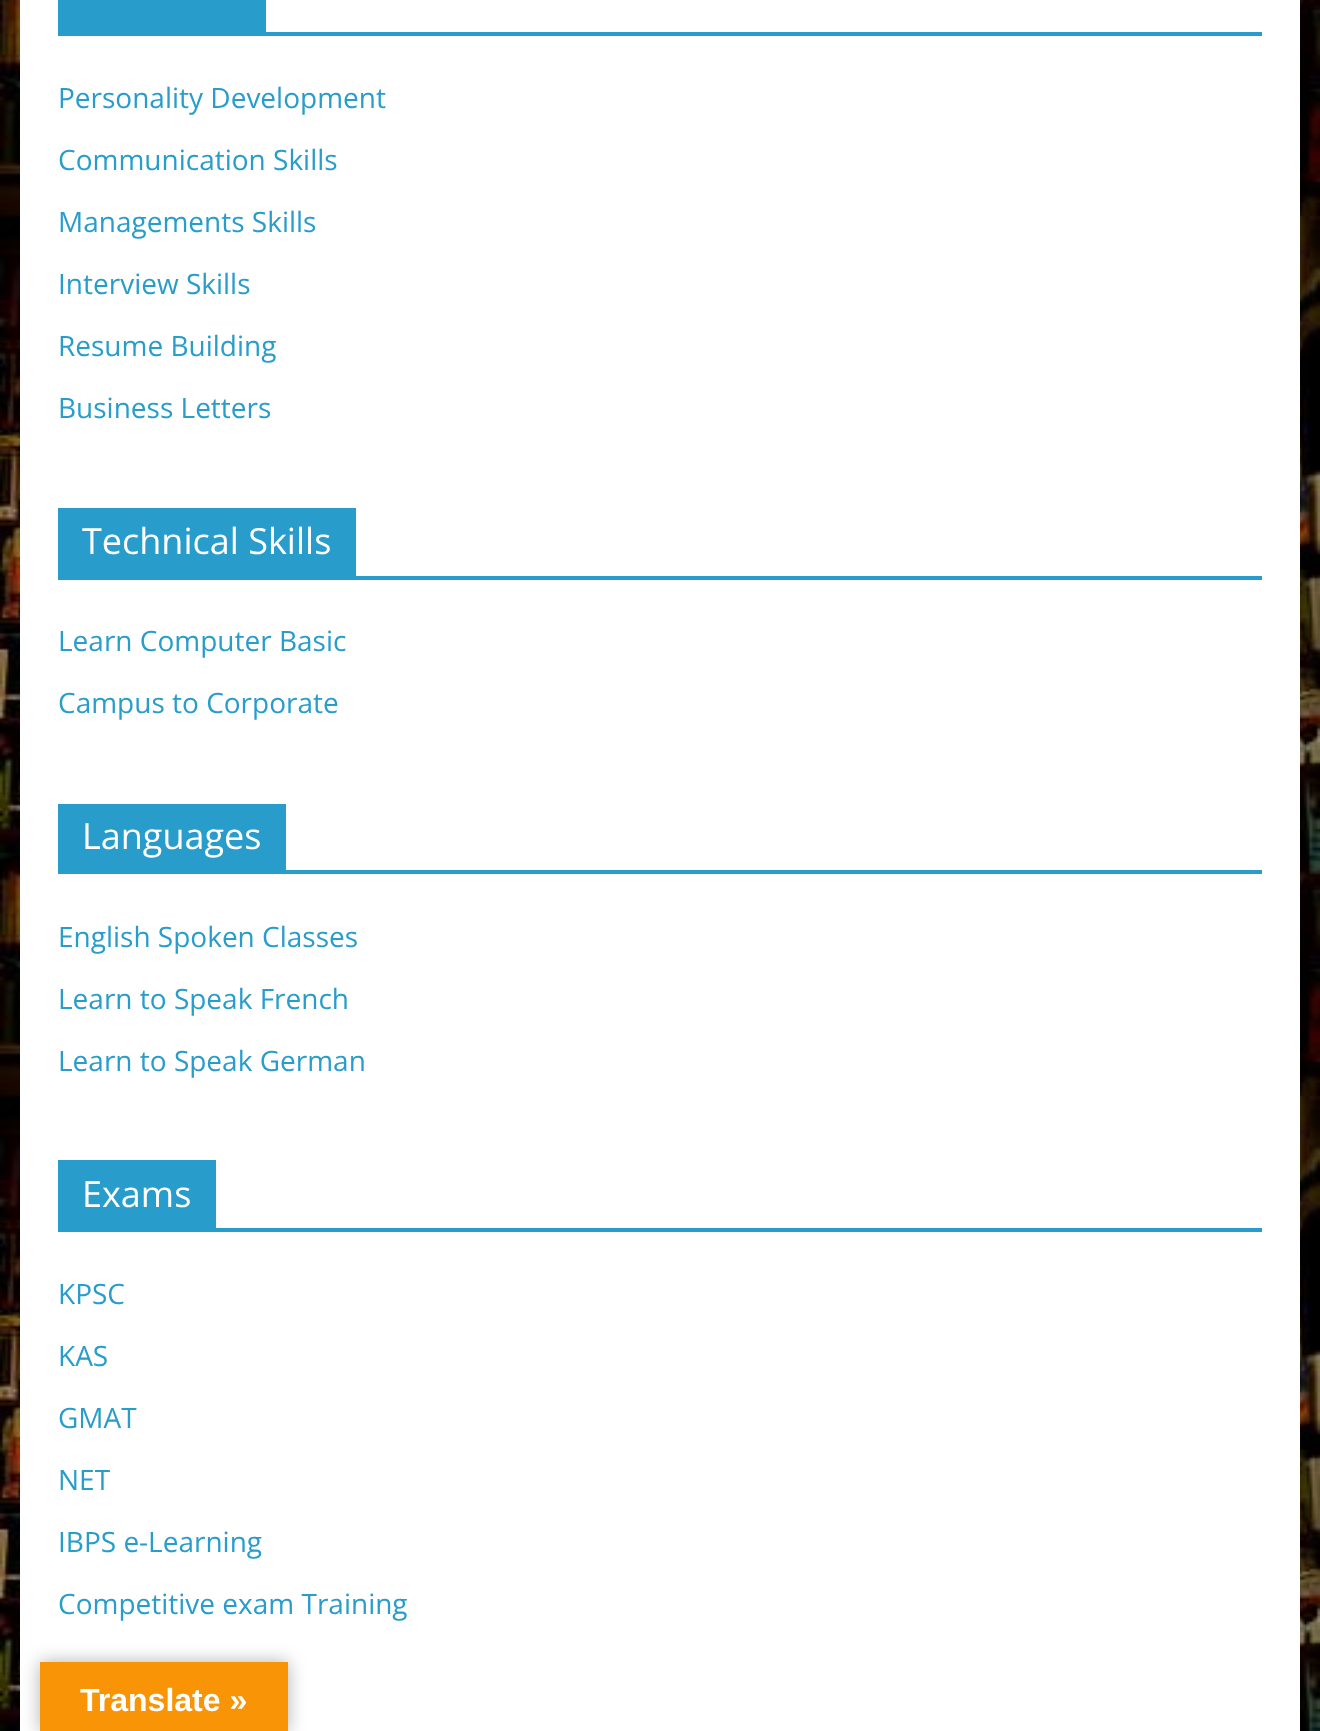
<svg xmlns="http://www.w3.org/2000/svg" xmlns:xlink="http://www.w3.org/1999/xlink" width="1320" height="1731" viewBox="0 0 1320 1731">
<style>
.cls-1{font:28px Open Sans;fill:#289dcc}
.cls-2{font:36px Open Sans;fill:#ffffff}
.cls-3{font:bold 32px Liberation Sans;fill:#ffffff}
</style>
<rect width="100%" height="100%" fill="#ffffff"/>
<image xlink:href="image0.png" x="0" y="0" width="1320" height="1731"/>
<rect fill="#ffffff" x="20" y="0" width="1280" height="1731"/>
<rect fill="#289dcc" x="58" y="32" width="1204" height="4"/>
<rect fill="#289dcc" x="58" y="0" width="208" height="32"/>
<rect fill="#289dcc" x="58" y="576" width="1204" height="4"/>
<rect fill="#289dcc" x="58" y="508" width="298" height="68"/>
<rect fill="#289dcc" x="58" y="870" width="1204" height="4"/>
<rect fill="#289dcc" x="58" y="804" width="228" height="66"/>
<rect fill="#289dcc" x="58" y="1228" width="1204" height="4"/>
<rect fill="#289dcc" x="58" y="1160" width="158" height="68"/>
<rect fill="#000000" fill-opacity="0.3" filter="blur(9px)" x="40" y="1662" width="248" height="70"/>
<rect fill="#f89406" x="40" y="1662" width="248" height="69"/>
<text class="cls-1" x="58" y="108">Personality Development</text>
<text class="cls-1" x="58" y="170">Communication Skills</text>
<text class="cls-1" x="58" y="232">Managements Skills</text>
<text class="cls-1" x="58" y="294">Interview Skills</text>
<text class="cls-1" x="58" y="356">Resume Building</text>
<text class="cls-1" x="58" y="418">Business Letters</text>
<text class="cls-2" x="82" y="554">Technical Skills</text>
<text class="cls-1" x="58" y="651">Learn Computer Basic</text>
<text class="cls-1" x="58" y="713">Campus to Corporate</text>
<text class="cls-2" x="82" y="849">Languages</text>
<text class="cls-1" x="58" y="947">English Spoken Classes</text>
<text class="cls-1" x="58" y="1009">Learn to Speak French</text>
<text class="cls-1" x="58" y="1071">Learn to Speak German</text>
<text class="cls-2" x="82" y="1207">Exams</text>
<text class="cls-1" x="58" y="1304">KPSC</text>
<text class="cls-1" x="58" y="1366">KAS</text>
<text class="cls-1" x="58" y="1428">GMAT</text>
<text class="cls-1" x="58" y="1490">NET</text>
<text class="cls-1" x="58" y="1552">IBPS e-Learning</text>
<text class="cls-1" x="58" y="1614">Competitive exam Training</text>
<text class="cls-3" x="80" y="1711">Translate »</text>
</svg>
